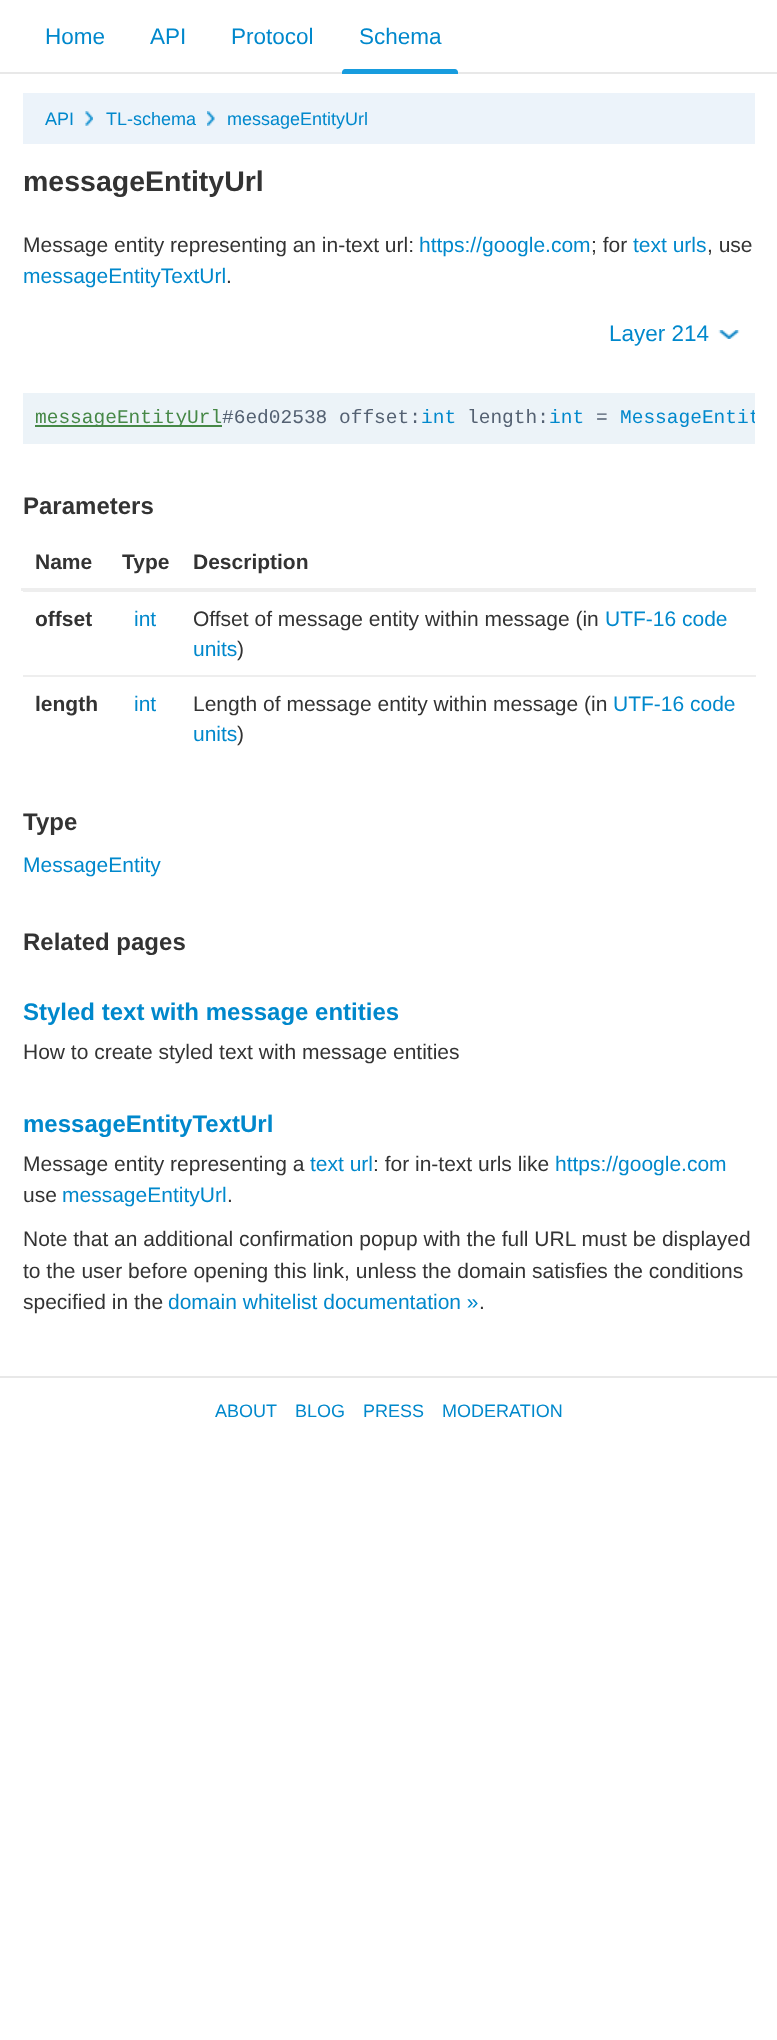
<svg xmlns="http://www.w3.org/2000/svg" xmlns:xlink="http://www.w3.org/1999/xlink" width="777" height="2040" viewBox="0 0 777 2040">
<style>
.cls-1{font:22.5px Liberation Sans;fill:#0088cc}
.cls-2{font:18px Liberation Sans;fill:#0088cc}
.cls-3{font:bold 28.5px Liberation Sans;fill:#333333}
.cls-4{font:21px Liberation Sans;fill:#333333}
.cls-5{font:21px Liberation Sans;fill:#0088cc}
.cls-6{font:19.5px Liberation Mono;fill:#468847}
.cls-7{font:19.5px Liberation Mono;fill:#546172}
.cls-8{font:19.5px Liberation Mono;fill:#0088cc}
.cls-9{font:bold 24px Liberation Sans;fill:#333333}
.cls-10{font:bold 21px Liberation Sans;fill:#333333}
.cls-11{font:bold 24px Liberation Sans;fill:#0088cc}
</style>
<defs>
<clipPath id="clip1"><rect x="23" y="393" width="732" height="51"/></clipPath>
</defs>
<rect width="100%" height="100%" fill="#ffffff"/>
<rect fill="#e8e8e8" x="0" y="72" width="777" height="2"/>
<path fill="#179cde" d="M345 69H455C456.5 69 458 70.5 458 72V74H342V72C342 70.5 343.5 69 345 69Z"/>
<rect fill="#ecf3fa" x="23" y="93" width="732" height="51"/>
<image xlink:href="image0.png" x="85" y="111" width="8" height="15"/>
<image xlink:href="image1.png" x="207" y="111" width="8" height="15"/>
<image xlink:href="image2.png" x="718" y="330" width="22" height="9"/>
<rect fill="#ecf3f8" x="23" y="393" width="732" height="51"/>
<rect fill="#468847" x="35" y="425" width="187" height="2"/>
<rect fill="#eeeeee" x="21" y="588" width="735" height="3"/>
<rect fill="#eeeeee" x="23" y="591" width="733" height="1"/>
<rect fill="#eeeeee" x="23" y="675" width="733" height="2"/>
<rect fill="#e8e8e8" x="0" y="1376" width="777" height="2"/>
<text class="cls-1" x="45" y="44">Home</text>
<text class="cls-1" x="150" y="44">API</text>
<text class="cls-1" x="231" y="44">Protocol</text>
<text class="cls-1" x="359" y="44">Schema</text>
<text class="cls-2" x="45" y="125">API</text>
<text class="cls-2" x="106" y="125">TL-schema</text>
<text class="cls-2" x="227" y="125">messageEntityUrl</text>
<text class="cls-3" x="23" y="191">messageEntityUrl</text>
<text class="cls-4" x="23" y="252">Message entity representing an in-text url:</text>
<text class="cls-5" x="419" y="252">https://google.com</text>
<text class="cls-4" x="591" y="252">; for</text>
<text class="cls-5" x="633" y="252">text urls</text>
<text class="cls-4" x="707" y="252">, use</text>
<text class="cls-5" x="23" y="283">messageEntityTextUrl</text>
<text class="cls-4" x="226" y="283">.</text>
<text class="cls-1" x="609" y="341">Layer 214</text>
<text class="cls-6" x="35" y="423">messageEntityUrl</text>
<text class="cls-7" x="222" y="423">#6ed02538 offset:</text>
<text class="cls-8" x="421" y="423">int</text>
<text class="cls-7" x="467" y="423">length:</text>
<text class="cls-8" x="549" y="423">int</text>
<text class="cls-7" x="596" y="423">=</text>
<g clip-path="url(#clip1)">
<text class="cls-8" x="620" y="423">MessageEntit</text>
</g>
<text class="cls-9" x="23" y="514">Parameters</text>
<text class="cls-10" x="35" y="569">Name</text>
<text class="cls-10" x="122" y="569">Type</text>
<text class="cls-10" x="193" y="569">Description</text>
<text class="cls-10" x="35" y="626">offset</text>
<text class="cls-5" x="134" y="626">int</text>
<text class="cls-4" x="193" y="626">Offset of message entity within message (in</text>
<text class="cls-5" x="605" y="626">UTF-16 code</text>
<text class="cls-5" x="193" y="656">units</text>
<text class="cls-4" x="237" y="656">)</text>
<text class="cls-10" x="35" y="711">length</text>
<text class="cls-5" x="134" y="711">int</text>
<text class="cls-4" x="193" y="711">Length of message entity within message (in</text>
<text class="cls-5" x="613" y="711">UTF-16 code</text>
<text class="cls-5" x="193" y="741">units</text>
<text class="cls-4" x="237" y="741">)</text>
<text class="cls-9" x="23" y="830">Type</text>
<text class="cls-5" x="23" y="872">MessageEntity</text>
<text class="cls-9" x="23" y="950">Related pages</text>
<text class="cls-11" x="23" y="1020">Styled text with message entities</text>
<text class="cls-4" x="23" y="1059">How to create styled text with message entities</text>
<text class="cls-11" x="23" y="1132">messageEntityTextUrl</text>
<text class="cls-4" x="23" y="1171">Message entity representing a</text>
<text class="cls-5" x="310" y="1171">text url</text>
<text class="cls-4" x="373" y="1171">: for in-text urls like</text>
<text class="cls-5" x="555" y="1171">https://google.com</text>
<text class="cls-4" x="23" y="1202">use</text>
<text class="cls-5" x="62" y="1202">messageEntityUrl</text>
<text class="cls-4" x="227" y="1202">.</text>
<text class="cls-4"><tspan x="23" y="1246">Note that an additional confirmation popup with the full URL must be displayed</tspan><tspan x="23" y="1278">to the user before opening this link, unless the domain satisfies the conditions</tspan><tspan x="23" y="1309">specified in the</tspan></text>
<text class="cls-5" x="168" y="1309">domain whitelist documentation »</text>
<text class="cls-4" x="479" y="1309">.</text>
<text class="cls-2" x="215" y="1417">ABOUT</text>
<text class="cls-2" x="295" y="1417">BLOG</text>
<text class="cls-2" x="363" y="1417">PRESS</text>
<text class="cls-2" x="442" y="1417">MODERATION</text>
</svg>
